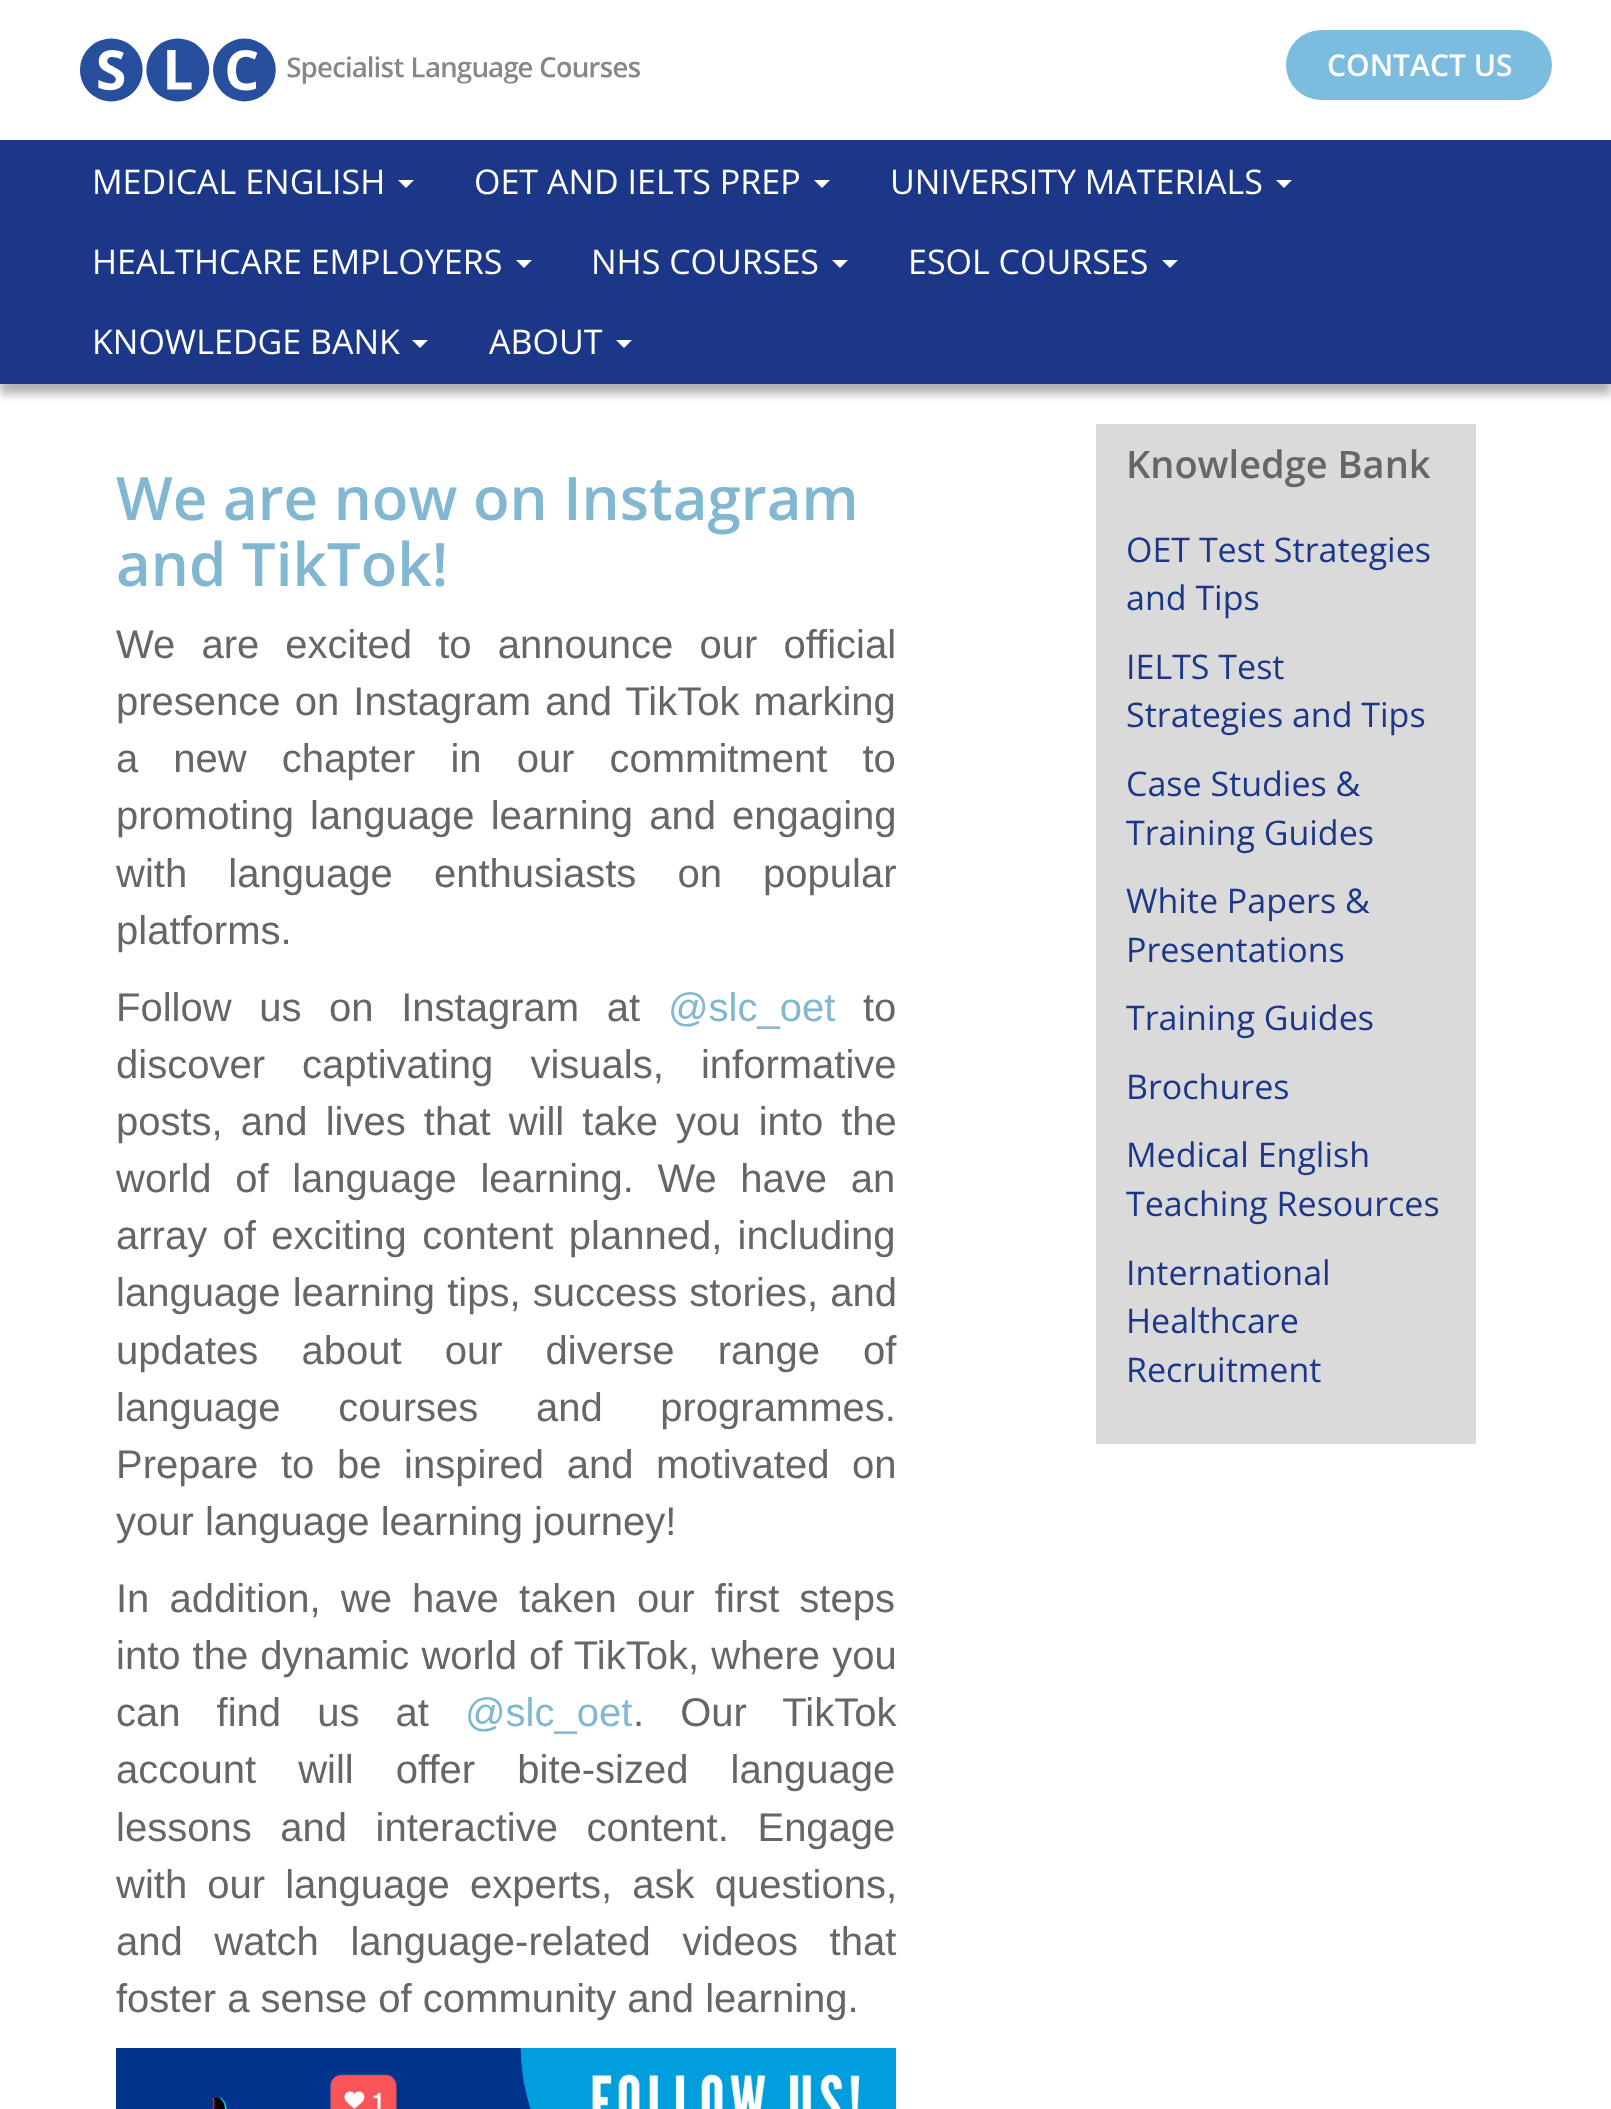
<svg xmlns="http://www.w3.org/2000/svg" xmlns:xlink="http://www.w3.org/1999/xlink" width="1611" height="2109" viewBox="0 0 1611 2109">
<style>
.cls-1{font:600 30px Open Sans;fill:#ffffff}
.cls-2{font:34px Open Sans;fill:#ffffff}
.cls-3{font:600 60px Open Sans;fill:#81b7d0}
.cls-4{font:40px Liberation Sans;fill:#666666}
.cls-5{font:40px Liberation Sans;fill:#81b7d0}
.cls-6{font:600 38px Open Sans;fill:#666666}
.cls-7{font:34px Open Sans;fill:#1c3788}
</style>
<rect width="100%" height="100%" fill="#ffffff"/>
<image xlink:href="image0.png" x="80" y="38" width="560" height="64"/>
<rect fill="#7cbddf" x="1286" y="30" width="266" height="70" rx="35"/>
<rect fill="#000000" fill-opacity="0.3" filter="blur(5px)" x="0" y="150" width="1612" height="244"/>
<rect fill="#1c3788" x="0" y="140" width="1611" height="244"/>
<path fill="#ffffff" d="M398 180H414L406 188Z"/>
<path fill="#ffffff" d="M814 180H830L822 188Z"/>
<path fill="#ffffff" d="M1276 180H1292L1284 188Z"/>
<path fill="#ffffff" d="M516 260H532L524 268Z"/>
<path fill="#ffffff" d="M832 260H848L840 268Z"/>
<path fill="#ffffff" d="M1162 260H1178L1170 268Z"/>
<path fill="#ffffff" d="M412 340H428L420 348Z"/>
<path fill="#ffffff" d="M616 340H632L624 348Z"/>
<image xlink:href="image1.png" x="116" y="2048" width="780" height="61"/>
<rect fill="#dadada" x="1096" y="424" width="380" height="1020"/>
<text class="cls-1" x="1327" y="76">CONTACT US</text>
<text class="cls-2" x="92" y="194">MEDICAL ENGLISH</text>
<text class="cls-2" x="474" y="194">OET AND IELTS PREP</text>
<text class="cls-2" x="890" y="194">UNIVERSITY MATERIALS</text>
<text class="cls-2" x="92" y="274">HEALTHCARE EMPLOYERS</text>
<text class="cls-2" x="591" y="274">NHS COURSES</text>
<text class="cls-2" x="908" y="274">ESOL COURSES</text>
<text class="cls-2" x="92" y="354">KNOWLEDGE BANK</text>
<text class="cls-2" x="489" y="354">ABOUT</text>
<text class="cls-3"><tspan x="116" y="520">We are now on Instagram</tspan><tspan x="116" y="586">and TikTok!</tspan></text>
<text class="cls-4"><tspan x="116" y="658" word-spacing="15">We are excited to announce our official</tspan><tspan x="116" y="715" word-spacing="3">presence on Instagram and TikTok marking</tspan><tspan x="116" y="772" word-spacing="24">a new chapter in our commitment to</tspan><tspan x="116" y="829" word-spacing="5">promoting language learning and engaging</tspan><tspan x="116" y="887" word-spacing="30">with language enthusiasts on popular</tspan><tspan x="116" y="944">platforms.</tspan><tspan x="116" y="1021" word-spacing="16.5">Follow us on Instagram at</tspan></text>
<text class="cls-5" x="668" y="1021">@slc_oet</text>
<text class="cls-4" x="863" y="1021">to</text>
<text class="cls-4"><tspan x="116" y="1078" word-spacing="26">discover captivating visuals, informative</tspan><tspan x="116" y="1135" word-spacing="7">posts, and lives that will take you into the</tspan><tspan x="116" y="1192" word-spacing="12.5">world of language learning. We have an</tspan><tspan x="116" y="1249" word-spacing="4.25">array of exciting content planned, including</tspan><tspan x="116" y="1306" word-spacing="1">language learning tips, success stories, and</tspan><tspan x="116" y="1364" word-spacing="32">updates about our diverse range of</tspan><tspan x="116" y="1421" word-spacing="46.5">language courses and programmes.</tspan><tspan x="116" y="1478" word-spacing="11.5">Prepare to be inspired and motivated on</tspan><tspan x="116" y="1535">your language learning journey!</tspan><tspan x="116" y="1612" word-spacing="9">In addition, we have taken our first steps</tspan><tspan x="116" y="1669" word-spacing="1">into the dynamic world of TikTok, where you</tspan><tspan x="116" y="1726" word-spacing="25">can find us at</tspan></text>
<text class="cls-5" x="465" y="1726">@slc_oet</text>
<text class="cls-4" x="633" y="1726" word-spacing="25">. Our TikTok</text>
<text class="cls-4"><tspan x="116" y="1783" word-spacing="31">account will offer bite-sized language</tspan><tspan x="116" y="1841" word-spacing="17.5">lessons and interactive content. Engage</tspan><tspan x="116" y="1898" word-spacing="9">with our language experts, ask questions,</tspan><tspan x="116" y="1955" word-spacing="20.5">and watch language-related videos that</tspan><tspan x="116" y="2012">foster a sense of community and learning.</tspan></text>
<text class="cls-6" x="1126" y="478">Knowledge Bank</text>
<text class="cls-7"><tspan x="1126" y="562">OET Test Strategies</tspan><tspan x="1126" y="610">and Tips</tspan></text>
<text class="cls-7"><tspan x="1126" y="679">IELTS Test</tspan><tspan x="1126" y="727">Strategies and Tips</tspan></text>
<text class="cls-7"><tspan x="1126" y="796">Case Studies &amp;</tspan><tspan x="1126" y="845">Training Guides</tspan></text>
<text class="cls-7"><tspan x="1126" y="913">White Papers &amp;</tspan><tspan x="1126" y="962">Presentations</tspan></text>
<text class="cls-7" x="1126" y="1030">Training Guides</text>
<text class="cls-7" x="1126" y="1099">Brochures</text>
<text class="cls-7"><tspan x="1126" y="1167">Medical English</tspan><tspan x="1126" y="1216">Teaching Resources</tspan></text>
<text class="cls-7"><tspan x="1126" y="1285">International</tspan><tspan x="1126" y="1333">Healthcare</tspan><tspan x="1126" y="1382">Recruitment</tspan></text>
</svg>
